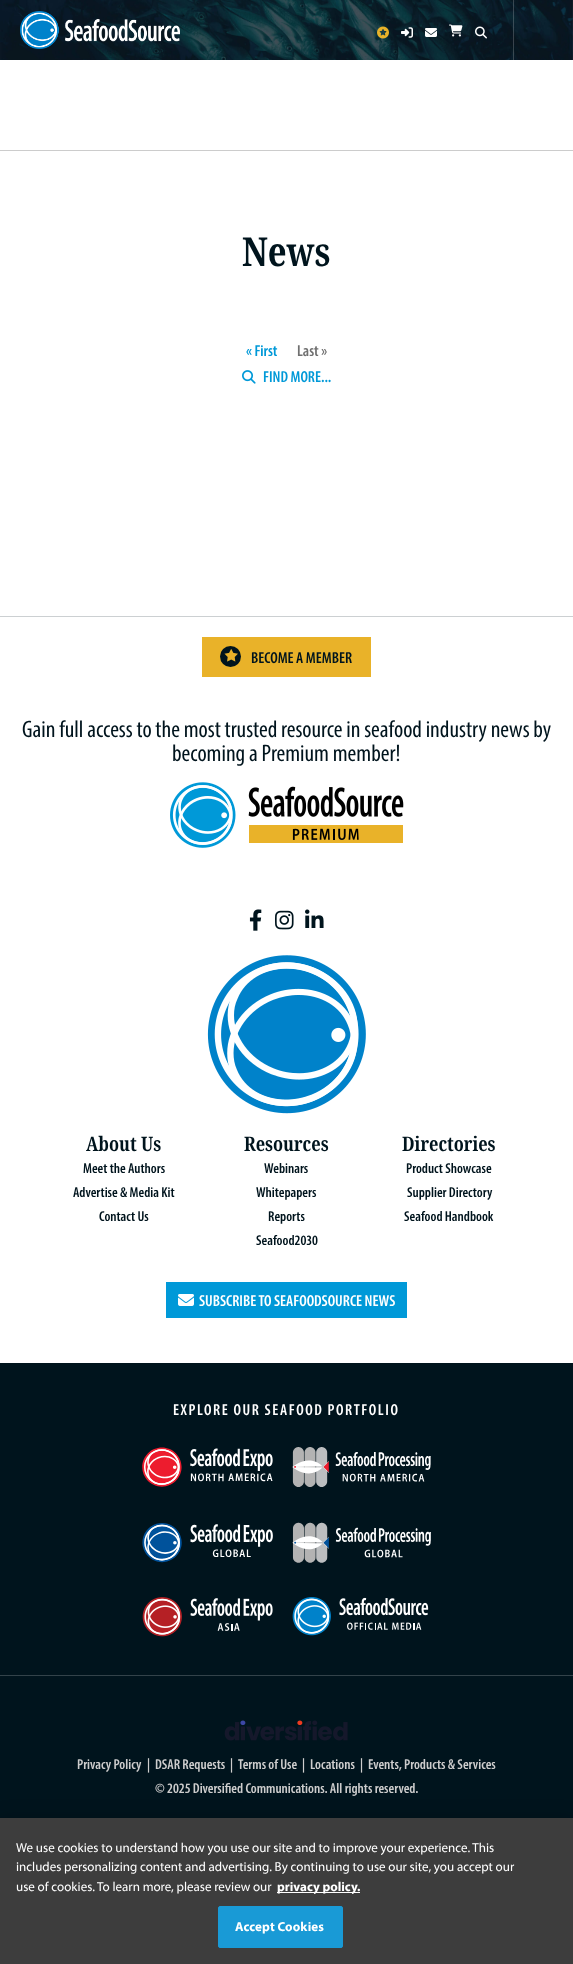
<svg xmlns="http://www.w3.org/2000/svg" xmlns:xlink="http://www.w3.org/1999/xlink" width="573" height="1964" viewBox="0 0 573 1964">
<style>
.cls-1{font:bold 40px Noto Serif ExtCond;fill:#00141d}
.cls-2{font:600 16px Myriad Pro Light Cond;fill:#0099d8}
.cls-3{font:600 16px Myriad Pro Light Cond;fill:#707070}
.cls-4{font:600 16px Myriad Pro Light Cond;fill:#00141d}
.cls-5{font:24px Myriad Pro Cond;fill:#00141d}
.cls-6{font:bold 20px Noto Serif ExtCond;fill:#00141d}
.cls-7{font:600 14.4px Myriad Pro Light Cond;fill:#00141d}
.cls-8{font:600 16px Myriad Pro Light Cond;fill:#ffffff}
.cls-9{font:600 16px Myriad Pro Light Cond;letter-spacing:1.6px;fill:#ffffff}
.cls-10{font:600 14.4px Myriad Pro Light Cond;fill:#cdcdcd}
.cls-11{font:13px Myriad;fill:#ffffff}
.cls-12{font:bold 13px Myriad;fill:#ffffff}
.cls-13{font:bold 13px Myriad;letter-spacing:0.1px;fill:#ffffff}
</style>
<rect width="100%" height="100%" fill="#ffffff"/>
<image xlink:href="image0.png" x="0" y="0" width="573" height="60"/>
<image xlink:href="image1.png" x="20" y="11" width="160" height="38"/>
<image xlink:href="image2.png" x="377" y="26" width="12" height="13"/>
<image xlink:href="image3.png" x="401" y="27" width="12" height="11"/>
<image xlink:href="image4.png" x="425" y="28" width="12" height="9"/>
<image xlink:href="image5.png" x="449" y="24" width="14" height="13"/>
<image xlink:href="image6.png" x="475" y="26" width="12" height="13"/>
<rect fill="#ffffff" fill-opacity="0.2" x="513" y="0" width="1" height="60"/>
<rect fill="#cccccc" x="0" y="150" width="573" height="1"/>
<image xlink:href="image7.png" x="242" y="370" width="14" height="14"/>
<rect fill="#ccd0d2" x="0" y="616" width="573" height="1"/>
<rect fill="#e9b229" x="202" y="637" width="169" height="40"/>
<circle fill="#00141d" cx="230.5" cy="656.5" r="10.5"/>
<image xlink:href="image8.png" x="224" y="649" width="14" height="13"/>
<image xlink:href="image9.png" x="170" y="782" width="234" height="66"/>
<image xlink:href="image10.png" x="249" y="909" width="13" height="22"/>
<image xlink:href="image11.png" x="275" y="910" width="19" height="20"/>
<image xlink:href="image12.png" x="305" y="909" width="19" height="19"/>
<image xlink:href="image13.png" x="207" y="955" width="159" height="159"/>
<rect fill="#0099d8" x="166" y="1282" width="241" height="36"/>
<image xlink:href="image14.png" x="178" y="1294" width="16" height="12"/>
<rect fill="#00141d" x="0" y="1363" width="573" height="312"/>
<image xlink:href="image15.png" x="142" y="1447" width="289" height="40"/>
<image xlink:href="image16.png" x="142" y="1522" width="289" height="41"/>
<image xlink:href="image17.png" x="142" y="1597" width="131" height="40"/>
<image xlink:href="image18.png" x="292" y="1597" width="137" height="39"/>
<rect fill="#00141d" x="0" y="1676" width="573" height="142"/>
<rect fill="#33434a" x="0" y="1675" width="573" height="1"/>
<image xlink:href="image19.png" x="224" y="1720" width="124" height="21"/>
<rect fill="#000000" fill-opacity="0.2" filter="blur(9px)" x="0" y="1818" width="573" height="146"/>
<rect fill="#3d3d3d" x="0" y="1818" width="573" height="146"/>
<rect fill="#ffffff" x="277" y="1892" width="83" height="1"/>
<rect fill="#199ad6" stroke="#199ad6" x="218.5" y="1906.5" width="124" height="41" rx="1.5"/>
<text class="cls-1" x="242" y="266">News</text>
<text class="cls-2" x="246" y="356">« First</text>
<text class="cls-3" x="297" y="356">Last »</text>
<text class="cls-2" x="263" y="382">FIND MORE...</text>
<text class="cls-4" x="251" y="663">BECOME A MEMBER</text>
<text class="cls-5" x="22" y="737">Gain full access to the most trusted resource in seafood industry news by</text>
<text class="cls-5" x="172" y="761">becoming a Premium member!</text>
<text class="cls-6" x="86" y="1151">About Us</text>
<text class="cls-7" x="83" y="1173">Meet the Authors</text>
<text class="cls-7" x="73" y="1197">Advertise &amp; Media Kit</text>
<text class="cls-7" x="99" y="1221">Contact Us</text>
<text class="cls-6" x="244" y="1151">Resources</text>
<text class="cls-7" x="264" y="1173">Webinars</text>
<text class="cls-7" x="256" y="1197">Whitepapers</text>
<text class="cls-7" x="268" y="1221">Reports</text>
<text class="cls-7" x="256" y="1245">Seafood2030</text>
<text class="cls-6" x="402" y="1151">Directories</text>
<text class="cls-7" x="406" y="1173">Product Showcase</text>
<text class="cls-7" x="407" y="1197">Supplier Directory</text>
<text class="cls-7" x="404" y="1221">Seafood Handbook</text>
<text class="cls-8" x="199" y="1306">SUBSCRIBE TO SEAFOODSOURCE NEWS</text>
<text class="cls-9" x="173" y="1415">EXPLORE OUR SEAFOOD PORTFOLIO</text>
<text class="cls-10" x="77" y="1769">Privacy Policy</text>
<text class="cls-10" x="147" y="1769">|</text>
<text class="cls-10" x="155" y="1769">DSAR Requests</text>
<text class="cls-10" x="230" y="1769">|</text>
<text class="cls-10" x="238" y="1769">Terms of Use</text>
<text class="cls-10" x="302" y="1769">|</text>
<text class="cls-10" x="310" y="1769">Locations</text>
<text class="cls-10" x="360" y="1769">|</text>
<text class="cls-10" x="368" y="1769">Events, Products &amp; Services</text>
<text class="cls-10" x="155" y="1793">© 2025 Diversified Communications. All rights reserved.</text>
<text class="cls-11"><tspan x="16" y="1852">We use cookies to understand how you use our site and to improve your experience. This</tspan><tspan x="16" y="1871">includes personalizing content and advertising. By continuing to use our site, you accept our</tspan><tspan x="16" y="1891">use of cookies. To learn more, please review our</tspan></text>
<text class="cls-12" x="277" y="1891">privacy policy.</text>
<text class="cls-13" x="235" y="1931">Accept Cookies</text>
</svg>
